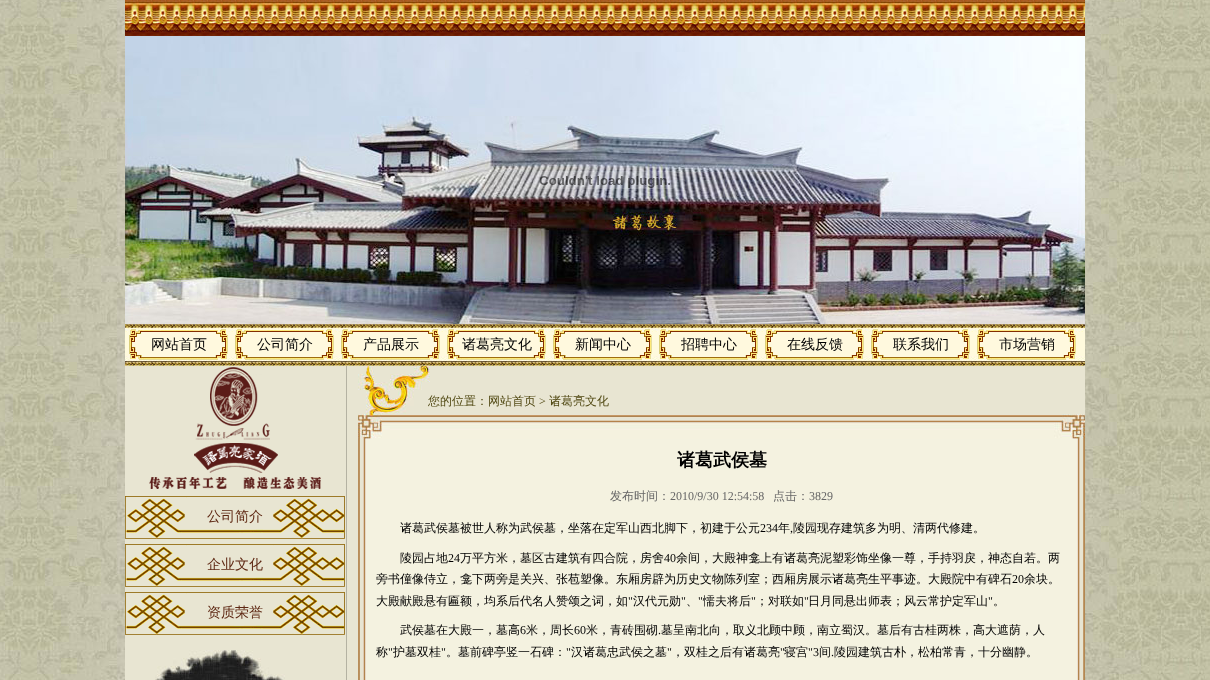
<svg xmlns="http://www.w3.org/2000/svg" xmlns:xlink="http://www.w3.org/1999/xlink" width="1210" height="680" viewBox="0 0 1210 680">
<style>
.cls-1{font:500 14px WenQuanYi Zen Hei;fill:#000000}
.cls-2{font:500 14px WenQuanYi Zen Hei;fill:#5e2813}
.cls-3{font:500 12px WenQuanYi Zen Hei;fill:#514913}
.cls-4{font:12px Liberation Serif;fill:#514913}
.cls-5{font:bold 18px WenQuanYi Zen Hei;fill:#000000}
.cls-6{font:500 12px WenQuanYi Zen Hei;fill:#666666}
.cls-7{font:12px Liberation Serif;fill:#666666}
.cls-8{font:500 12px WenQuanYi Zen Hei;fill:#000000}
.cls-9{font:12px Liberation Serif;fill:#000000}
</style>
<rect width="100%" height="100%" fill="#ffffff"/>
<image xlink:href="image0.png" x="0" y="0" width="1210" height="680"/>
<image xlink:href="image1.png" x="125" y="0" width="960" height="36"/>
<image xlink:href="image2.png" x="125" y="36" width="960" height="288"/>
<image xlink:href="image3.png" x="533" y="171" width="144" height="18"/>
<image xlink:href="image4.png" x="125" y="324" width="960" height="42"/>
<image xlink:href="image5.png" x="129" y="329" width="99" height="31"/>
<image xlink:href="image5.png" x="235" y="329" width="99" height="31"/>
<image xlink:href="image5.png" x="341" y="329" width="99" height="31"/>
<image xlink:href="image5.png" x="447" y="329" width="99" height="31"/>
<image xlink:href="image5.png" x="553" y="329" width="99" height="31"/>
<image xlink:href="image5.png" x="659" y="329" width="99" height="31"/>
<image xlink:href="image5.png" x="765" y="329" width="99" height="31"/>
<image xlink:href="image5.png" x="871" y="329" width="99" height="31"/>
<image xlink:href="image5.png" x="977" y="329" width="99" height="31"/>
<rect fill="#e8e5d2" x="125" y="366" width="233" height="314"/>
<rect fill="#b4b2a2" x="346" y="366" width="1" height="314"/>
<image xlink:href="image6.png" x="149" y="367" width="172" height="122"/>
<image xlink:href="image7.png" x="125" y="496" width="220" height="43"/>
<image xlink:href="image7.png" x="125" y="544" width="220" height="43"/>
<image xlink:href="image7.png" x="125" y="592" width="220" height="43"/>
<image xlink:href="image8.png" x="155" y="650" width="130" height="30"/>
<image xlink:href="image9.png" x="358" y="439" width="727" height="241"/>
<image xlink:href="image10.png" x="358" y="366" width="727" height="73"/>
<text class="cls-1" x="151" y="349">网站首页</text>
<text class="cls-1" x="257" y="349">公司简介</text>
<text class="cls-1" x="363" y="349">产品展示</text>
<text class="cls-1" x="462" y="349">诸葛亮文化</text>
<text class="cls-1" x="575" y="349">新闻中心</text>
<text class="cls-1" x="681" y="349">招聘中心</text>
<text class="cls-1" x="787" y="349">在线反馈</text>
<text class="cls-1" x="893" y="349">联系我们</text>
<text class="cls-1" x="999" y="349">市场营销</text>
<text class="cls-2" x="207" y="521">公司简介</text>
<text class="cls-2" x="207" y="569">企业文化</text>
<text class="cls-2" x="207" y="617">资质荣誉</text>
<text class="cls-3" x="428" y="405">您的位置：网站首页</text>
<text class="cls-4" x="539" y="405">&gt;</text>
<text class="cls-3" x="549" y="405">诸葛亮文化</text>
<text class="cls-5" x="677" y="466">诸葛武侯墓</text>
<text class="cls-6" x="610" y="500">发布时间：</text>
<text class="cls-7" x="670" y="500">2010/9/30 12:54:58</text>
<text class="cls-6" x="773" y="500">点击：</text>
<text class="cls-7" x="809" y="500">3829</text>
<text class="cls-8" x="400" y="532">诸葛武侯墓被世人称为武侯墓，坐落在定军山西北脚下，初建于公元</text>
<text class="cls-9" x="760" y="532">234</text>
<text class="cls-8" x="778" y="532">年</text>
<text class="cls-9" x="790" y="532">,</text>
<text class="cls-8" x="793" y="532">陵园现存建筑多为明、清两代修建。</text>
<text class="cls-8" x="400" y="562">陵园占地</text>
<text class="cls-9" x="448" y="562">24</text>
<text class="cls-8" x="460" y="562">万平方米，墓区古建筑有四合院，房舍</text>
<text class="cls-9" x="664" y="562">40</text>
<text class="cls-8" x="676" y="562">余间，大殿神龛上有诸葛亮泥塑彩饰坐像一尊，手持羽戾，神态自若。两</text>
<text class="cls-8" x="376" y="583">旁书僮像侍立，龛下两旁是关兴、张苞塑像。东厢房辟为历史文物陈列室；西厢房展示诸葛亮生平事迹。大殿院中有碑石</text>
<text class="cls-9" x="1012" y="583">20</text>
<text class="cls-8" x="1024" y="583">余块。</text>
<text class="cls-8" x="376" y="605">大殿献殿悬有匾额，均系后代名人赞颂之词，如</text>
<text class="cls-9" x="628" y="605">"</text>
<text class="cls-8" x="633" y="605">汉代元勋</text>
<text class="cls-9" x="681" y="605">"</text>
<text class="cls-9" x="698" y="605">"</text>
<text class="cls-8" x="703" y="605">懦夫将后</text>
<text class="cls-9" x="751" y="605">"</text>
<text class="cls-8" x="756" y="605">；对联如</text>
<text class="cls-9" x="804" y="605">"</text>
<text class="cls-8" x="808" y="605">日月同悬出师表；风云常护定军山</text>
<text class="cls-9" x="988" y="605">"</text>
<text class="cls-8" x="686" y="605">、</text>
<text class="cls-8" x="993" y="605">。</text>
<text class="cls-8" x="400" y="634">武侯墓在大殿一，墓高</text>
<text class="cls-9" x="520" y="634">6</text>
<text class="cls-8" x="526" y="634">米，周长</text>
<text class="cls-9" x="574" y="634">60</text>
<text class="cls-8" x="586" y="634">米，青砖围砌</text>
<text class="cls-9" x="658" y="634">.</text>
<text class="cls-8" x="661" y="634">墓呈南北向，取义北顾中顾，南立蜀汉。墓后有古桂两株，高大遮荫，人</text>
<text class="cls-8" x="376" y="656">称</text>
<text class="cls-9" x="388" y="656">"</text>
<text class="cls-8" x="393" y="656">护墓双桂</text>
<text class="cls-9" x="441" y="656">"</text>
<text class="cls-8" x="446" y="656">。墓前碑亭竖一石碑：</text>
<text class="cls-9" x="566" y="656">"</text>
<text class="cls-8" x="571" y="656">汉诸葛忠武侯之墓</text>
<text class="cls-9" x="667" y="656">"</text>
<text class="cls-8" x="672" y="656">，双桂之后有诸葛亮</text>
<text class="cls-9" x="780" y="656">"</text>
<text class="cls-8" x="784" y="656">寝宫</text>
<text class="cls-9" x="808" y="656">"3</text>
<text class="cls-8" x="819" y="656">间</text>
<text class="cls-9" x="831" y="656">.</text>
<text class="cls-8" x="834" y="656">陵园建筑古朴，松柏常青，十分幽静。</text>
</svg>
